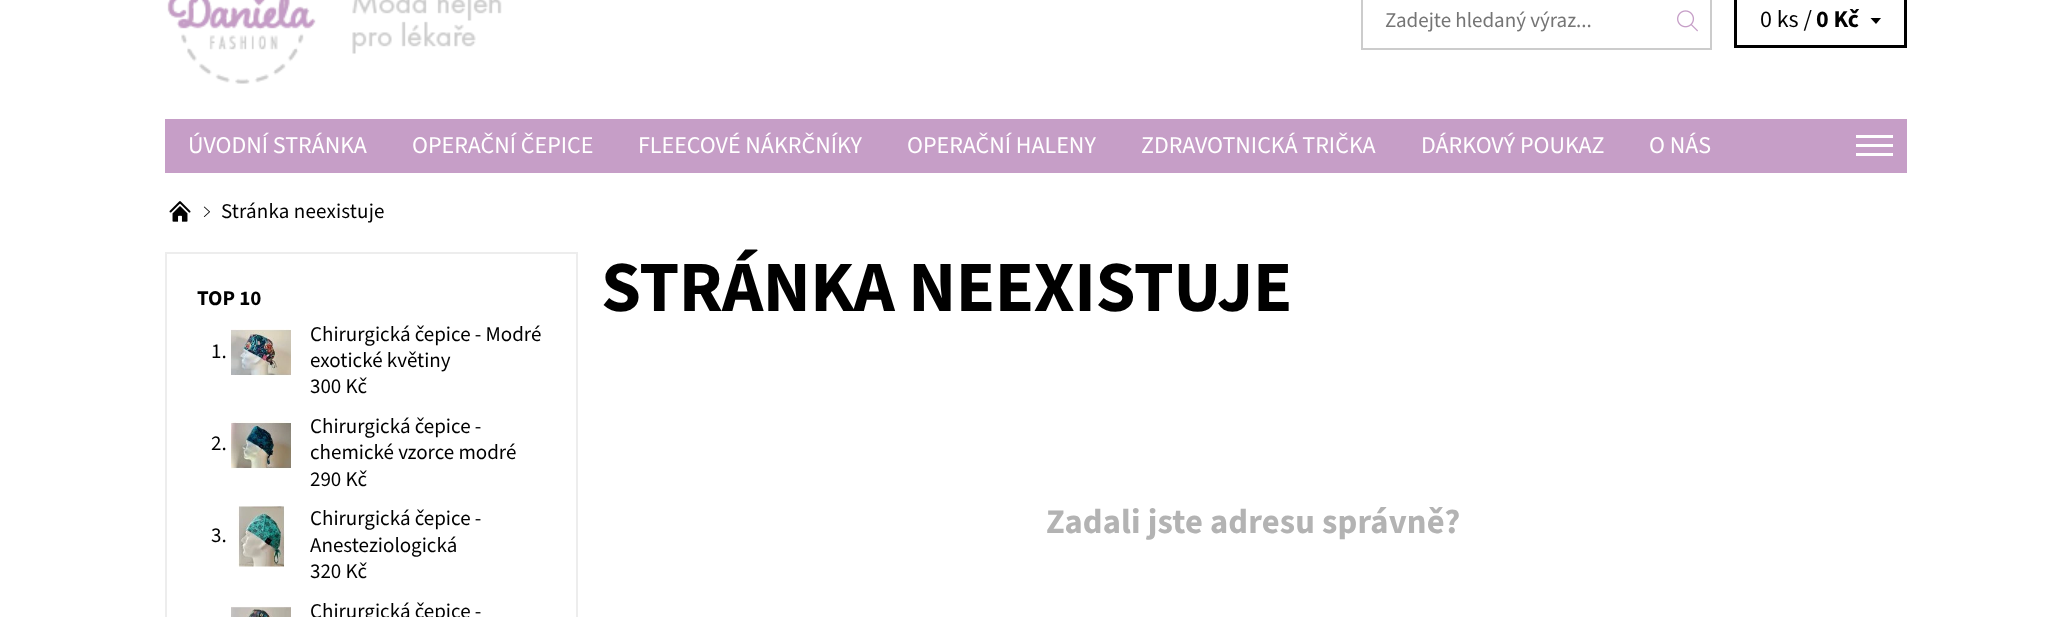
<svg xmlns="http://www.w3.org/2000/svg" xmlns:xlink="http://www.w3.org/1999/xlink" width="2071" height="617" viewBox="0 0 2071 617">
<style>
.cls-1{font:21px 'Source Sans 3';fill:#757575}
.cls-2{font:24px 'Source Sans 3';fill:#000000}
.cls-3{font:bold 24px 'Source Sans 3';fill:#000000}
.cls-4{font:24px 'Source Sans 3';fill:#ffffff}
.cls-5{font:21px 'Source Sans 3';letter-spacing:0.15px;fill:#000000}
.cls-6{font:bold 21px 'Source Sans 3';fill:#000000}
.cls-7{font:21px 'Source Sans 3';fill:#000000}
.cls-8{font:bold 72px 'Source Sans 3';letter-spacing:-0.4px;fill:#000000}
.cls-9{font:bold 34.5px 'Source Sans 3';letter-spacing:0.15px;fill:#b3b3b3}
</style>
<rect width="100%" height="100%" fill="#ffffff"/>
<image xlink:href="image0.png" x="167" y="0" width="335" height="84"/>
<rect fill="#cccccc" x="1361" y="48" width="304" height="2"/>
<rect fill="#cccccc" x="1361" y="0" width="2" height="50"/>
<rect fill="#cccccc" x="1710" y="0" width="2" height="50"/>
<rect fill="#cccccc" x="1665" y="48" width="47" height="2"/>
<image xlink:href="image1.png" x="1677" y="10" width="21" height="22"/>
<rect fill="none" stroke="#000000" stroke-width="3" x="1735.5" y="-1.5" width="170" height="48"/>
<path fill="#000000" d="M1876 18H1881L1876 24L1870.5 18Z"/>
<rect fill="#c69ec7" x="165" y="119" width="1742" height="54"/>
<rect fill="#ffffff" x="1856" y="135" width="37" height="3"/>
<rect fill="#ffffff" x="1856" y="144" width="37" height="3"/>
<rect fill="#ffffff" x="1856" y="153" width="37" height="3"/>
<image xlink:href="image2.png" x="169" y="201" width="22" height="21"/>
<image xlink:href="image3.png" x="203" y="206" width="7" height="11"/>
<rect fill="none" stroke="#ededed" stroke-width="2" x="166" y="253" width="411" height="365"/>
<image xlink:href="image4.png" x="231" y="329" width="60" height="47"/>
<image xlink:href="image5.png" x="231" y="420" width="60" height="49"/>
<image xlink:href="image6.png" x="237" y="506" width="48" height="61"/>
<image xlink:href="image7.png" x="231" y="606" width="60" height="11"/>
<text class="cls-1" x="1385" y="27">Zadejte hledaný výraz...</text>
<text class="cls-2" x="1760" y="27">0 ks /</text>
<text class="cls-3" x="1816" y="27">0 Kč</text>
<text class="cls-4" x="188" y="153">ÚVODNÍ STRÁNKA</text>
<text class="cls-4" x="412" y="153">OPERAČNÍ ČEPICE</text>
<text class="cls-4" x="638" y="153">FLEECOVÉ NÁKRČNÍKY</text>
<text class="cls-4" x="907" y="153">OPERAČNÍ HALENY</text>
<text class="cls-4" x="1141" y="153">ZDRAVOTNICKÁ TRIČKA</text>
<text class="cls-4" x="1421" y="153">DÁRKOVÝ POUKAZ</text>
<text class="cls-4" x="1649" y="153">O NÁS</text>
<text class="cls-5" x="221" y="218">Stránka neexistuje</text>
<text class="cls-6" x="197" y="305">TOP 10</text>
<text class="cls-7" x="211" y="358">1.</text>
<text class="cls-7"><tspan x="310" y="341">Chirurgická čepice - Modré</tspan><tspan x="310" y="367">exotické květiny</tspan><tspan x="310" y="393">300 Kč</tspan></text>
<text class="cls-7" x="211" y="450">2.</text>
<text class="cls-7"><tspan x="310" y="433">Chirurgická čepice -</tspan><tspan x="310" y="459">chemické vzorce modré</tspan><tspan x="310" y="486">290 Kč</tspan></text>
<text class="cls-7" x="211" y="542">3.</text>
<text class="cls-7"><tspan x="310" y="525">Chirurgická čepice -</tspan><tspan x="310" y="552">Anesteziologická</tspan><tspan x="310" y="578">320 Kč</tspan><tspan x="310" y="618">Chirurgická čepice -</tspan></text>
<text class="cls-8" x="601" y="311">STRÁNKA NEEXISTUJE</text>
<text class="cls-9" x="1046" y="533">Zadali jste adresu správně?</text>
</svg>
